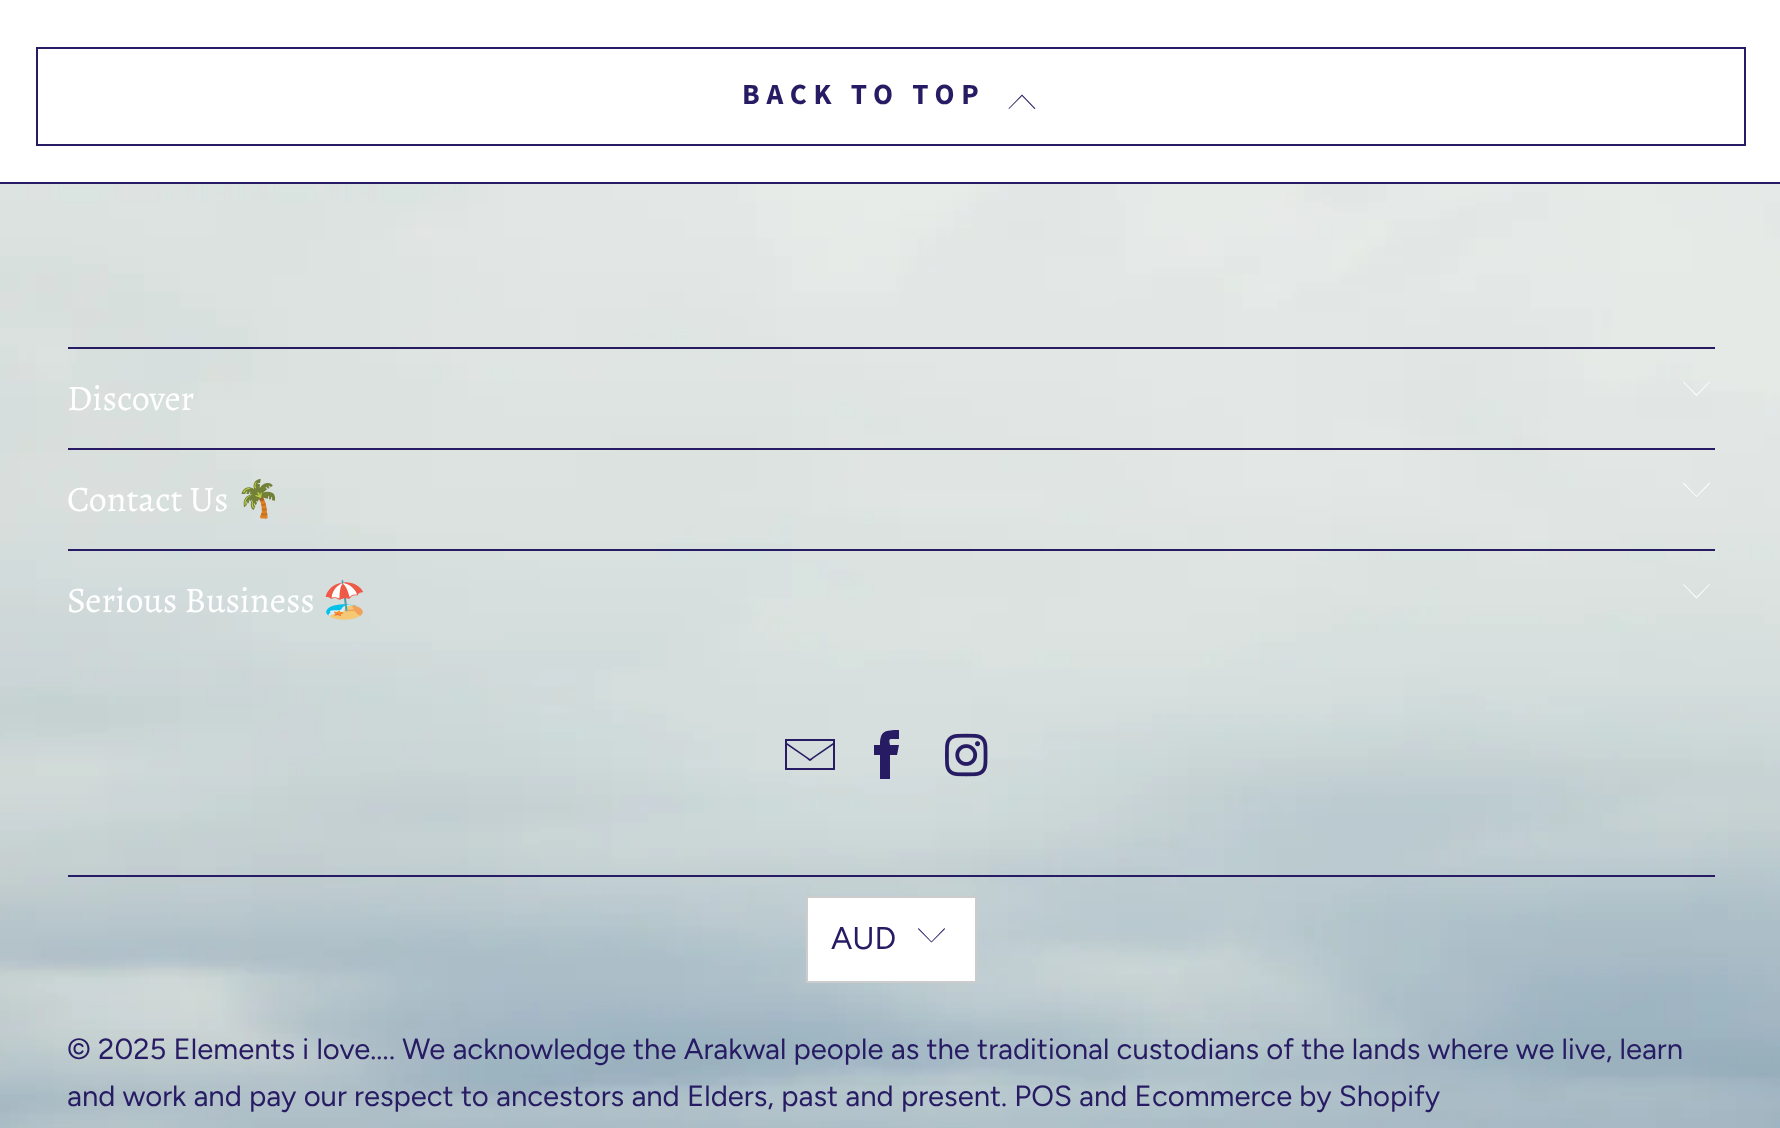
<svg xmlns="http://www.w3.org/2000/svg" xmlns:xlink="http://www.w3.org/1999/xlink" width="1780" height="1128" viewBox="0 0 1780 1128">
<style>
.cls-1{font:bold 29.25px Source Sans Pro;letter-spacing:6.75px;fill:#271b63}
.cls-2{font:36px Alegreya;fill:#ffffff}
.cls-3{font:36px Noto Color Emoji;fill:#ffffff}
.cls-4{font:31.5px Figtree;fill:#271b63}
.cls-5{font:29.25px Figtree;fill:#271b63}
</style>
<rect width="100%" height="100%" fill="#ffffff"/>
<rect fill="none" stroke="#271b63" stroke-width="2" x="37" y="48" width="1708" height="97"/>
<path fill="#271b63" d="M1022 94.5L1035.5 108.5L1034.5 109L1022 96L1009 109L1008.5 108.5Z"/>
<image xlink:href="image0.png" x="0" y="184" width="1780" height="944"/>
<rect fill="#271b63" x="0" y="182" width="1780" height="2"/>
<rect fill="#271b63" x="68" y="347" width="1647" height="2"/>
<path fill="#ffffff" d="M1696.5 396L1683 382L1683.5 381.5L1696.5 394.5L1709.5 381.5L1710 382Z"/>
<rect fill="#271b63" x="68" y="448" width="1647" height="2"/>
<path fill="#ffffff" d="M1696.5 497L1683 483.5L1683.5 482.5L1696.5 496L1709.5 482.5L1710 483.5Z"/>
<rect fill="#271b63" x="68" y="549" width="1647" height="2"/>
<path fill="#ffffff" d="M1696.5 598.5L1683 584.5L1683.5 584L1696.5 597L1709.5 584L1710 584.5Z"/>
<path fill="#271b63" d="M785 739V770H835V739ZM833 741V743L810 759L787 743V741ZM787 768V745L806 758C811 762 809 762 814 758L833 745V768Z"/>
<path fill="#271b63" d="M891 739H899V730C885 730 880 731 880 745H874V755H880V779H890V755H897L899 745H890C890 744 888 739 891 739Z"/>
<image xlink:href="image1.png" x="945" y="733" width="43" height="44"/>
<rect fill="#271b63" x="68" y="875" width="1647" height="2"/>
<rect fill="#ffffff" stroke="#cccccc" stroke-width="2" x="807" y="897" width="169" height="85"/>
<path fill="#271b63" d="M931.5 942.5L918 929L918.5 928L931.5 941.5L944.5 928L945 929Z"/>
<text class="cls-1" x="742" y="104">BACK TO TOP</text>
<text class="cls-2" x="67" y="410">Discover</text>
<text class="cls-2" x="67" y="511">Contact Us</text>
<text class="cls-3" x="236" y="511">🌴</text>
<text class="cls-2" x="67" y="612">Serious Business</text>
<text class="cls-3" x="322" y="612">🏖️</text>
<text class="cls-4" x="831" y="949">AUD</text>
<text class="cls-5" x="67" y="1059">© 2025 Elements i love...</text>
<text class="cls-5" x="389" y="1059">. We acknowledge the Arakwal people as the traditional custodians of the lands where we live, learn</text>
<text class="cls-5" x="67" y="1106">and work and pay our respect to ancestors and Elders, past and present. POS</text>
<text class="cls-5" x="1079" y="1106">and Ecommerce by Shopify</text>
</svg>
